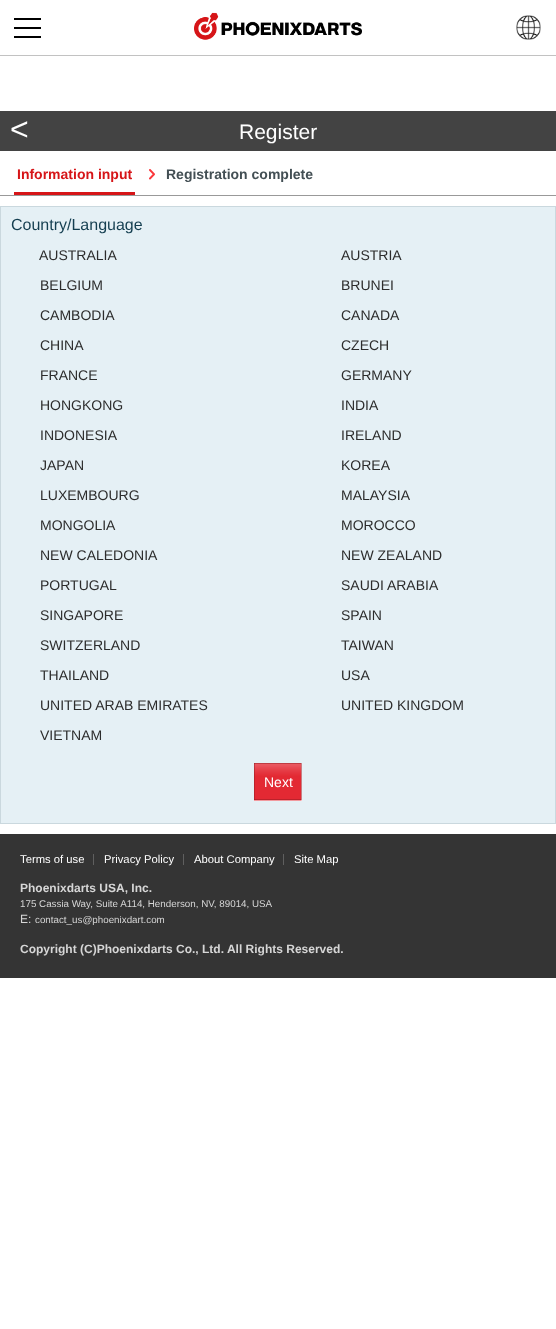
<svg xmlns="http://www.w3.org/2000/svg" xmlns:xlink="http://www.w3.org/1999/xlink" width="556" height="1329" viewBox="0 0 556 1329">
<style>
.cls-1{font:32px Liberation Sans;fill:#ffffff}
.cls-2{font:21px Liberation Sans;fill:#ffffff}
.cls-3{font:bold 14px Liberation Sans;fill:#d61518}
.cls-4{font:bold 14px Liberation Sans;fill:#434f54}
.cls-5{font:16px Liberation Sans;fill:#143e50}
.cls-6{font:14px Liberation Sans;fill:#2c2c2c}
.cls-7{font:14px Liberation Sans;fill:#ffffff}
.cls-8{font:11.25px Liberation Sans;fill:#ffffff}
.cls-9{font:bold 12px Liberation Sans;fill:#d6d6d6}
.cls-10{font:9.8px Liberation Sans;fill:#d6d6d6}
.cls-11{font:12px Liberation Sans;fill:#d6d6d6}
</style>
<rect width="100%" height="100%" fill="#ffffff"/>
<rect fill="#c2c2c2" x="0" y="55" width="556" height="1"/>
<rect fill="#000000" x="14" y="27" width="27" height="2"/>
<rect fill="#000000" x="14" y="18" width="27" height="2"/>
<rect fill="#000000" x="14" y="36" width="27" height="2"/>
<image xlink:href="image0.png" x="194" y="12" width="168" height="28"/>
<image xlink:href="image1.png" x="516" y="15" width="25" height="25"/>
<rect fill="#434343" x="0" y="111" width="556" height="40"/>
<rect fill="#999999" x="0" y="195" width="556" height="1"/>
<rect fill="#d61518" x="14" y="192" width="121" height="3"/>
<image xlink:href="image2.png" x="149" y="169" width="6" height="11"/>
<rect fill="#e5f0f5" stroke="#cad8de" x="0.5" y="206.5" width="555" height="617"/>
<image xlink:href="image3.png" x="254" y="763" width="47" height="38"/>
<image xlink:href="image4.png" x="301" y="763" width="1" height="38"/>
<rect fill="#343434" x="0" y="834" width="556" height="144"/>
<rect fill="#5f5f5f" x="93" y="854" width="1" height="11"/>
<rect fill="#5f5f5f" x="183" y="854" width="1" height="11"/>
<rect fill="#5f5f5f" x="283" y="854" width="1" height="11"/>
<text class="cls-1" x="10" y="140">&lt;</text>
<text class="cls-2" x="239" y="139">Register</text>
<text class="cls-3" x="17" y="179">Information input</text>
<text class="cls-4" x="166" y="179">Registration complete</text>
<text class="cls-5" x="11" y="230">Country/Language</text>
<text class="cls-6" x="39" y="260">AUSTRALIA</text>
<text class="cls-6" x="341" y="260">AUSTRIA</text>
<text class="cls-6" x="40" y="290">BELGIUM</text>
<text class="cls-6" x="341" y="290">BRUNEI</text>
<text class="cls-6" x="40" y="320">CAMBODIA</text>
<text class="cls-6" x="341" y="320">CANADA</text>
<text class="cls-6" x="40" y="350">CHINA</text>
<text class="cls-6" x="341" y="350">CZECH</text>
<text class="cls-6" x="40" y="380">FRANCE</text>
<text class="cls-6" x="341" y="380">GERMANY</text>
<text class="cls-6" x="40" y="410">HONGKONG</text>
<text class="cls-6" x="341" y="410">INDIA</text>
<text class="cls-6" x="40" y="440">INDONESIA</text>
<text class="cls-6" x="341" y="440">IRELAND</text>
<text class="cls-6" x="40" y="470">JAPAN</text>
<text class="cls-6" x="341" y="470">KOREA</text>
<text class="cls-6" x="40" y="500">LUXEMBOURG</text>
<text class="cls-6" x="341" y="500">MALAYSIA</text>
<text class="cls-6" x="40" y="530">MONGOLIA</text>
<text class="cls-6" x="341" y="530">MOROCCO</text>
<text class="cls-6" x="40" y="560">NEW CALEDONIA</text>
<text class="cls-6" x="341" y="560">NEW ZEALAND</text>
<text class="cls-6" x="40" y="590">PORTUGAL</text>
<text class="cls-6" x="341" y="590">SAUDI ARABIA</text>
<text class="cls-6" x="40" y="620">SINGAPORE</text>
<text class="cls-6" x="341" y="620">SPAIN</text>
<text class="cls-6" x="40" y="650">SWITZERLAND</text>
<text class="cls-6" x="341" y="650">TAIWAN</text>
<text class="cls-6" x="40" y="680">THAILAND</text>
<text class="cls-6" x="341" y="680">USA</text>
<text class="cls-6" x="40" y="710">UNITED ARAB EMIRATES</text>
<text class="cls-6" x="341" y="710">UNITED KINGDOM</text>
<text class="cls-6" x="40" y="740">VIETNAM</text>
<text class="cls-7" x="264" y="787">Next</text>
<text class="cls-8" x="20" y="863">Terms of use</text>
<text class="cls-8" x="104" y="863">Privacy Policy</text>
<text class="cls-8" x="194" y="863">About Company</text>
<text class="cls-8" x="294" y="863">Site Map</text>
<text class="cls-9" x="20" y="892">Phoenixdarts USA, Inc.</text>
<text class="cls-10" x="20" y="907">175 Cassia Way, Suite A114, Henderson, NV, 89014, USA</text>
<text class="cls-11" x="20" y="923">E:</text>
<text class="cls-10" x="35" y="923">contact_us@phoenixdart.com</text>
<text class="cls-9" x="20" y="953">Copyright (C)Phoenixdarts Co., Ltd. All Rights Reserved.</text>
</svg>
